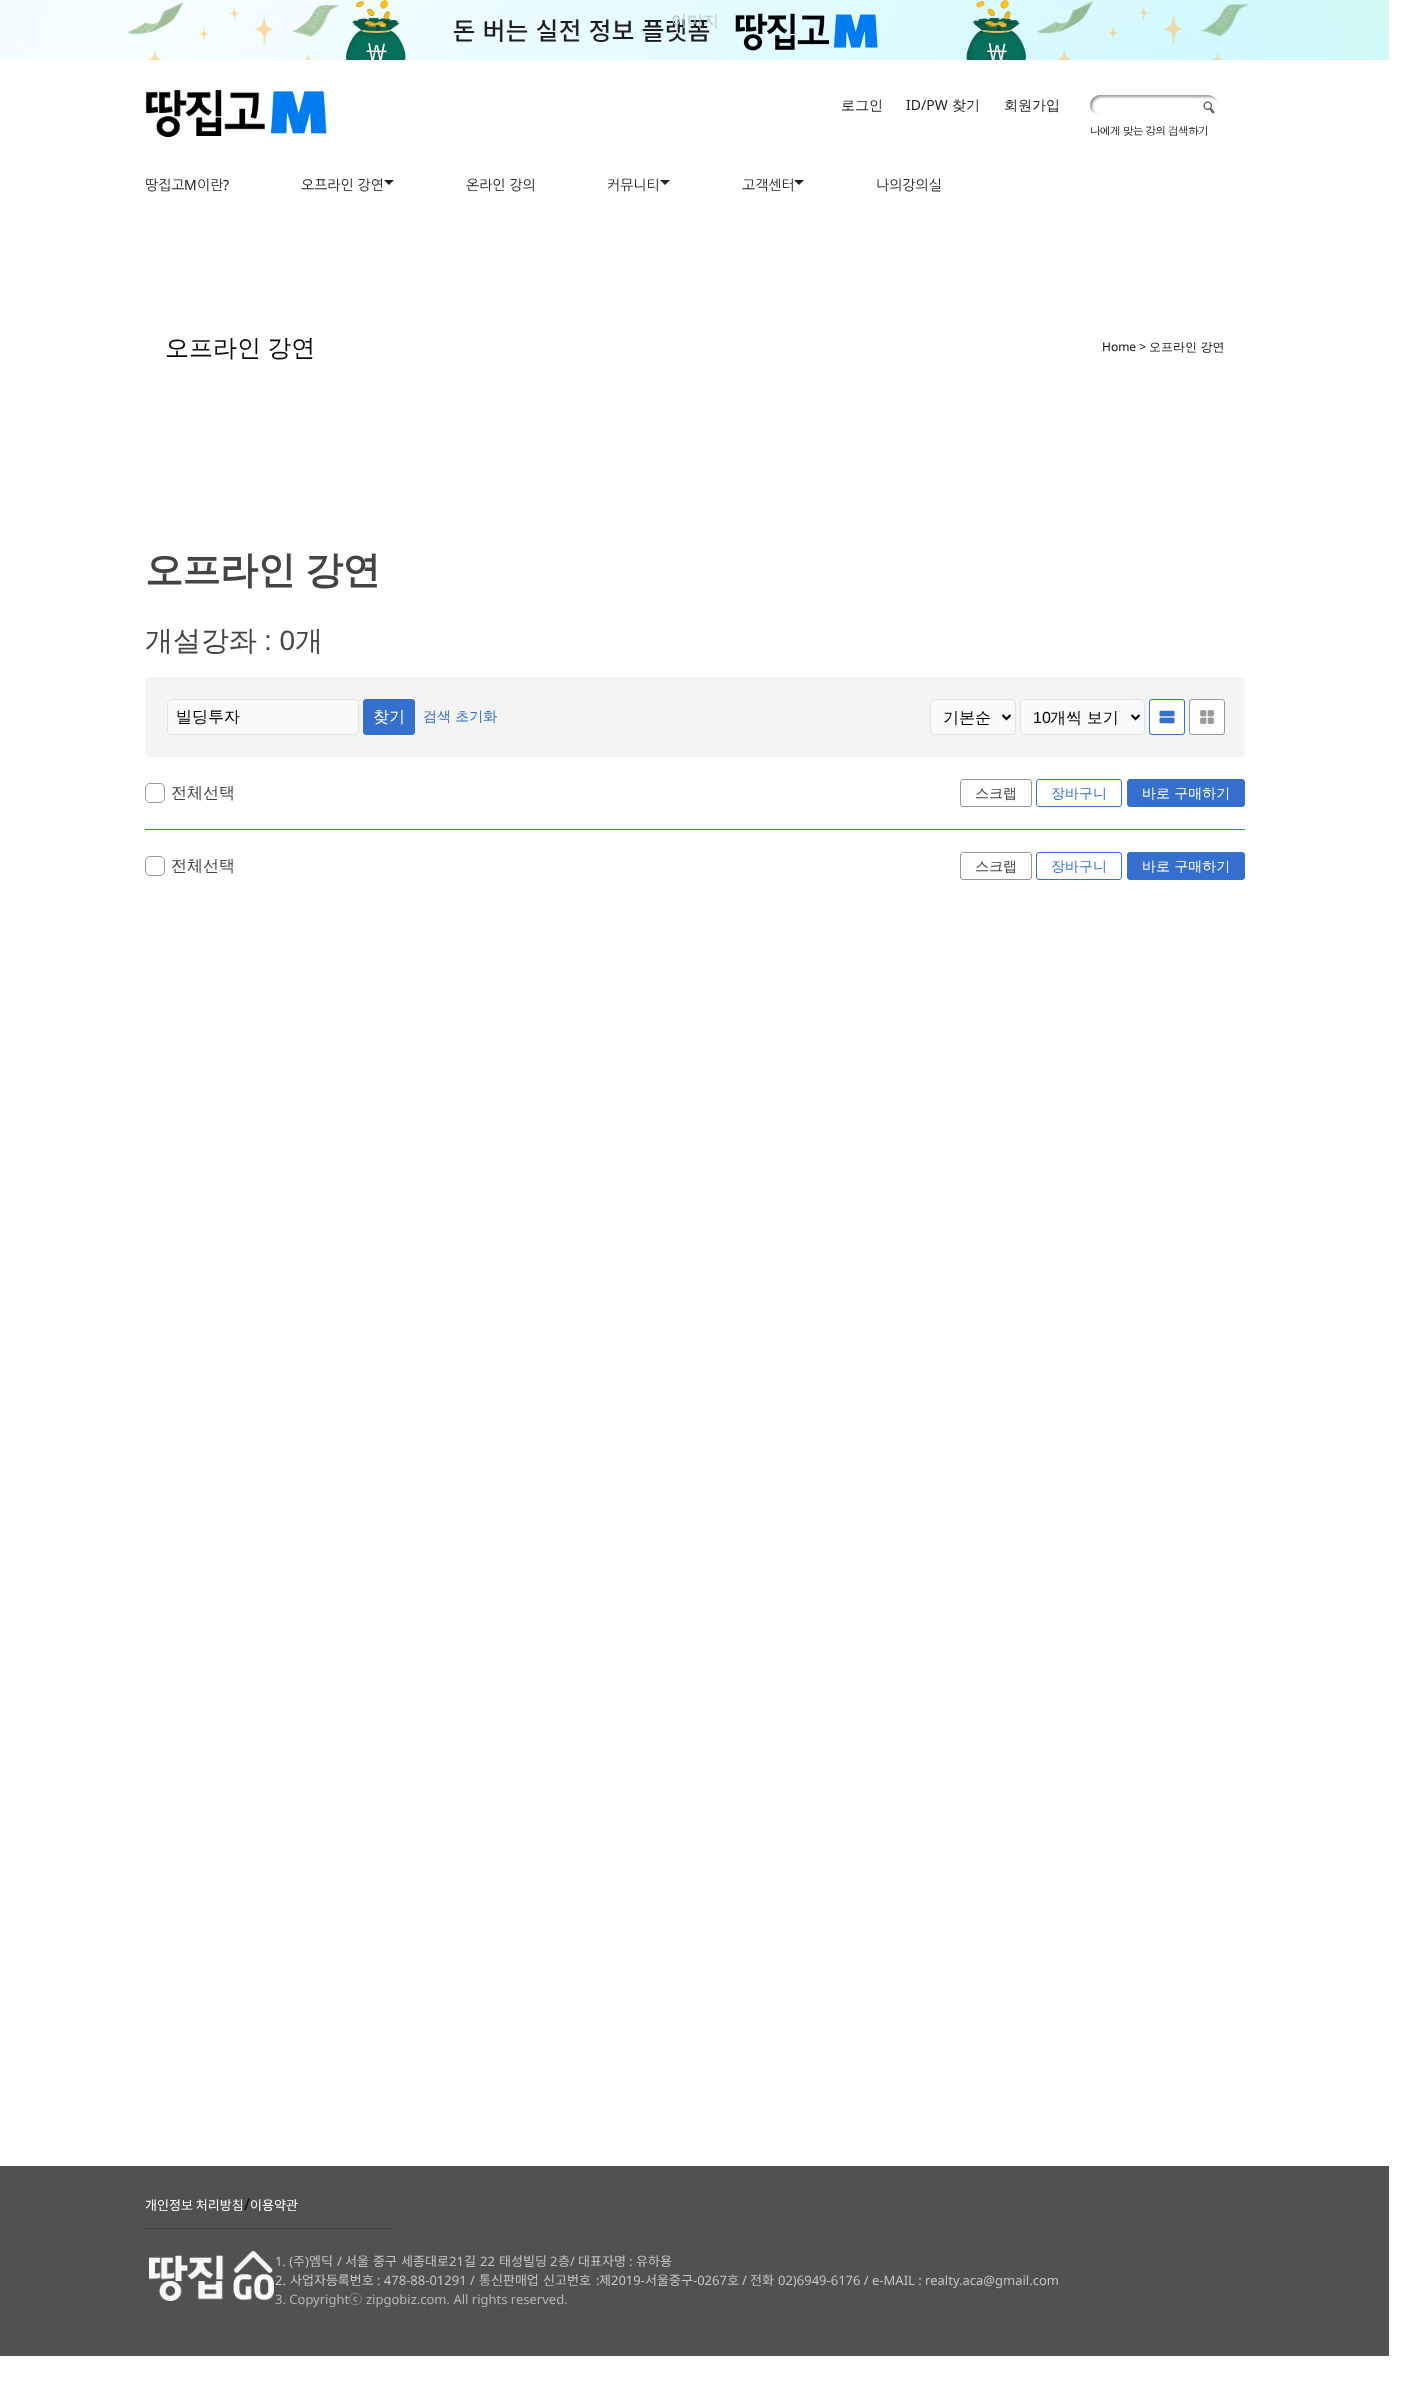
<svg xmlns="http://www.w3.org/2000/svg" xmlns:xlink="http://www.w3.org/1999/xlink" width="1404" height="2392" viewBox="0 0 1404 2392">
<style>
.cls-1{font:500 16px WenQuanYi Zen Hei;fill:#b9cbce}
.cls-2{font:500 14px WenQuanYi Zen Hei;fill:#222222}
.cls-3{font:14px Noto Sans;fill:#222222}
.cls-4{font:11px Dotum;letter-spacing:-1px;fill:#000000}
.cls-5{font:14px NanumGothic;fill:#222222}
.cls-6{font:500 24px WenQuanYi Zen Hei;fill:#0f090f}
.cls-7{font:12px Noto Sans;fill:#0f090f}
.cls-8{font:500 12px WenQuanYi Zen Hei;fill:#0f090f}
.cls-9{font:bold 38px WenQuanYi Zen Hei;letter-spacing:-0.5px;fill:#444444}
.cls-10{font:500 28px WenQuanYi Zen Hei;fill:#444444}
.cls-11{font:28px Liberation Sans;fill:#444444}
.cls-12{font:500 16px WenQuanYi Zen Hei;fill:#000000}
.cls-13{font:500 16px WenQuanYi Zen Hei;fill:#ffffff}
.cls-14{font:500 14px WenQuanYi Zen Hei;fill:#3570cf}
.cls-15{font:16px Liberation Sans;fill:#000000}
.cls-16{font:500 16px WenQuanYi Zen Hei;fill:#444444}
.cls-17{font:500 14px WenQuanYi Zen Hei;fill:#444444}
.cls-18{font:500 14px WenQuanYi Zen Hei;fill:#ffffff}
.cls-19{font:13px Noto Sans KR;fill:#ffffff}
.cls-20{font:16px Noto Sans;fill:#000000}
.cls-21{font:13px Noto Sans;fill:#c5c5c5}
.cls-22{font:13px Noto Sans KR;fill:#c5c5c5}
.cls-23{font:13px Noto Sans;fill:#b6b6b6}
.cls-24{font:13px Noto Sans KR;fill:#b6b6b6}
</style>
<rect width="100%" height="100%" fill="#ffffff"/>
<image xlink:href="image0.png" x="0" y="0" width="1389" height="60"/>
<image xlink:href="image1.png" x="145" y="90" width="182" height="47"/>
<image xlink:href="image2.png" x="1090" y="95" width="105" height="20"/>
<image xlink:href="image3.png" x="1195" y="95" width="23" height="19"/>
<path fill="#222222" d="M384 180H394L389 185Z"/>
<path fill="#222222" d="M660 180H670L665 185Z"/>
<path fill="#222222" d="M794 180H804L799 185Z"/>
<rect fill="#f4f4f4" x="145" y="677" width="1100" height="80" rx="5"/>
<rect fill="#f9fafc" stroke="#e2e2e2" x="167.5" y="699.5" width="191" height="35" rx="4.5"/>
<rect fill="#3570cf" stroke="#3570cf" x="363.5" y="699.5" width="51" height="35" rx="2.5"/>
<rect fill="#f9fafc" stroke="#e2e2e2" x="930.5" y="699.5" width="85" height="35" rx="4.5"/>
<path fill="none" stroke="#000000" stroke-width="2" d="M1002.5 715L1006.5 719L1010.5 715"/>
<rect fill="#f9fafc" stroke="#e2e2e2" x="1020.5" y="699.5" width="124" height="35" rx="4.5"/>
<path fill="none" stroke="#000000" stroke-width="2" d="M1131.5 715L1135.5 719L1139.5 715"/>
<rect fill="#ffffff" stroke="#3570cf" x="1149.5" y="699.5" width="35" height="35" rx="2.5"/>
<image xlink:href="image4.png" x="1159" y="710" width="16" height="14"/>
<rect fill="#ffffff" stroke="#999999" x="1189.5" y="699.5" width="35" height="35" rx="2.5"/>
<image xlink:href="image5.png" x="1200" y="710" width="14" height="14"/>
<rect fill="none" stroke="#999999" x="145.5" y="783.5" width="19" height="19" rx="4.5"/>
<rect fill="none" stroke="#999999" x="960.5" y="779.5" width="71" height="27" rx="2.5"/>
<rect fill="none" stroke="#3570cf" x="1036.5" y="779.5" width="85" height="27" rx="2.5"/>
<rect fill="#3570cf" stroke="#3570cf" x="1127.5" y="779.5" width="117" height="27" rx="2.5"/>
<rect fill="#3570cf" x="145" y="829" width="1100" height="1"/>
<rect fill="none" stroke="#999999" x="145.5" y="856.5" width="19" height="19" rx="4.5"/>
<rect fill="none" stroke="#999999" x="960.5" y="852.5" width="71" height="27" rx="2.5"/>
<rect fill="none" stroke="#3570cf" x="1036.5" y="852.5" width="85" height="27" rx="2.5"/>
<rect fill="#3570cf" stroke="#3570cf" x="1127.5" y="852.5" width="117" height="27" rx="2.5"/>
<rect fill="#515151" x="0" y="2166" width="1389" height="190"/>
<rect fill="#414141" x="145" y="2228" width="246" height="1"/>
<image xlink:href="image6.png" x="149" y="2251" width="125" height="50"/>
<text class="cls-1" x="671" y="26">이미지</text>
<text class="cls-2" x="841" y="110">로그인</text>
<text class="cls-3" x="906" y="110">ID/PW</text>
<text class="cls-2" x="952" y="110">찾기</text>
<text class="cls-2" x="1004" y="110">회원가입</text>
<text class="cls-4" x="1090" y="135">나에게 맞는 강의 검색하기</text>
<text class="cls-5" x="145" y="190">땅집고</text>
<text class="cls-3" x="184" y="190">M</text>
<text class="cls-5" x="197" y="190">이란</text>
<text class="cls-3" x="223" y="190">?</text>
<text class="cls-5" x="301" y="190">오프라인 강연</text>
<text class="cls-5" x="466" y="190">온라인 강의</text>
<text class="cls-5" x="607" y="190">커뮤니티</text>
<text class="cls-5" x="742" y="190">고객센터</text>
<text class="cls-5" x="876" y="190">나의강의실</text>
<text class="cls-6" x="165" y="356" word-spacing="-1">오프라인 강연</text>
<text class="cls-7" x="1102" y="351">Home &gt;</text>
<text class="cls-8" x="1149" y="351">오프라인 강연</text>
<text class="cls-9" x="145" y="583" word-spacing="-1">오프라인 강연</text>
<text class="cls-10" x="145" y="650">개설강좌</text>
<text class="cls-11" x="264" y="650">: 0</text>
<text class="cls-10" x="295" y="650">개</text>
<text class="cls-12" x="176" y="722">빌딩투자</text>
<text class="cls-13" x="373" y="722">찾기</text>
<text class="cls-14" x="423" y="721">검색 초기화</text>
<text class="cls-12" x="943" y="723">기본순</text>
<text class="cls-15" x="1033" y="723">10</text>
<text class="cls-12" x="1050" y="723">개씩 보기</text>
<text class="cls-16" x="171" y="798">전체선택</text>
<text class="cls-17" x="975" y="798">스크랩</text>
<text class="cls-14" x="1051" y="798">장바구니</text>
<text class="cls-18" x="1142" y="798">바로 구매하기</text>
<text class="cls-16" x="171" y="871">전체선택</text>
<text class="cls-17" x="975" y="871">스크랩</text>
<text class="cls-14" x="1051" y="871">장바구니</text>
<text class="cls-18" x="1142" y="871">바로 구매하기</text>
<text class="cls-19" x="145" y="2210">개인정보 처리방침</text>
<text class="cls-20" x="244" y="2210">/</text>
<text class="cls-19" x="250" y="2210">이용약관</text>
<text class="cls-21" x="275" y="2266">1. (</text>
<text class="cls-22" x="293" y="2266">주</text>
<text class="cls-21" x="305" y="2266">)</text>
<text class="cls-22" x="309" y="2266">엠딕</text>
<text class="cls-21" x="337" y="2266">/</text>
<text class="cls-22" x="345" y="2266">서울</text>
<text class="cls-22" x="373" y="2266">중구</text>
<text class="cls-22" x="401" y="2266">세종대로</text>
<text class="cls-21" x="449" y="2266">21</text>
<text class="cls-22" x="464" y="2266">길</text>
<text class="cls-21" x="480" y="2266">22</text>
<text class="cls-22" x="499" y="2266">태성빌딩</text>
<text class="cls-21" x="550" y="2266">2</text>
<text class="cls-22" x="558" y="2266">층</text>
<text class="cls-21" x="570" y="2266">/</text>
<text class="cls-22" x="578" y="2266">대표자명</text>
<text class="cls-21" x="629" y="2266">:</text>
<text class="cls-22" x="636" y="2266">유하용</text>
<text class="cls-21" x="275" y="2285">2.</text>
<text class="cls-22" x="290" y="2285">사업자등록번호</text>
<text class="cls-21" x="377" y="2285">: 478-88-01291 /</text>
<text class="cls-22" x="479" y="2285">통신판매업</text>
<text class="cls-22" x="543" y="2285">신고번호</text>
<text class="cls-21" x="596" y="2285">:</text>
<text class="cls-22" x="599" y="2285">제</text>
<text class="cls-21" x="611" y="2285">2019-</text>
<text class="cls-22" x="645" y="2285">서울중구</text>
<text class="cls-21" x="693" y="2285">-0267</text>
<text class="cls-22" x="727" y="2285">호</text>
<text class="cls-21" x="742" y="2285">/</text>
<text class="cls-22" x="750" y="2285">전화</text>
<text class="cls-21" x="778" y="2285">02)6949-6176 / e-MAIL : realty.aca@gmail.com</text>
<text class="cls-23" x="275" y="2304">3. Copyright</text>
<text class="cls-24" x="349" y="2304">ⓒ</text>
<text class="cls-23" x="366" y="2304">zipgobiz.com. All rights reserved.</text>
</svg>
